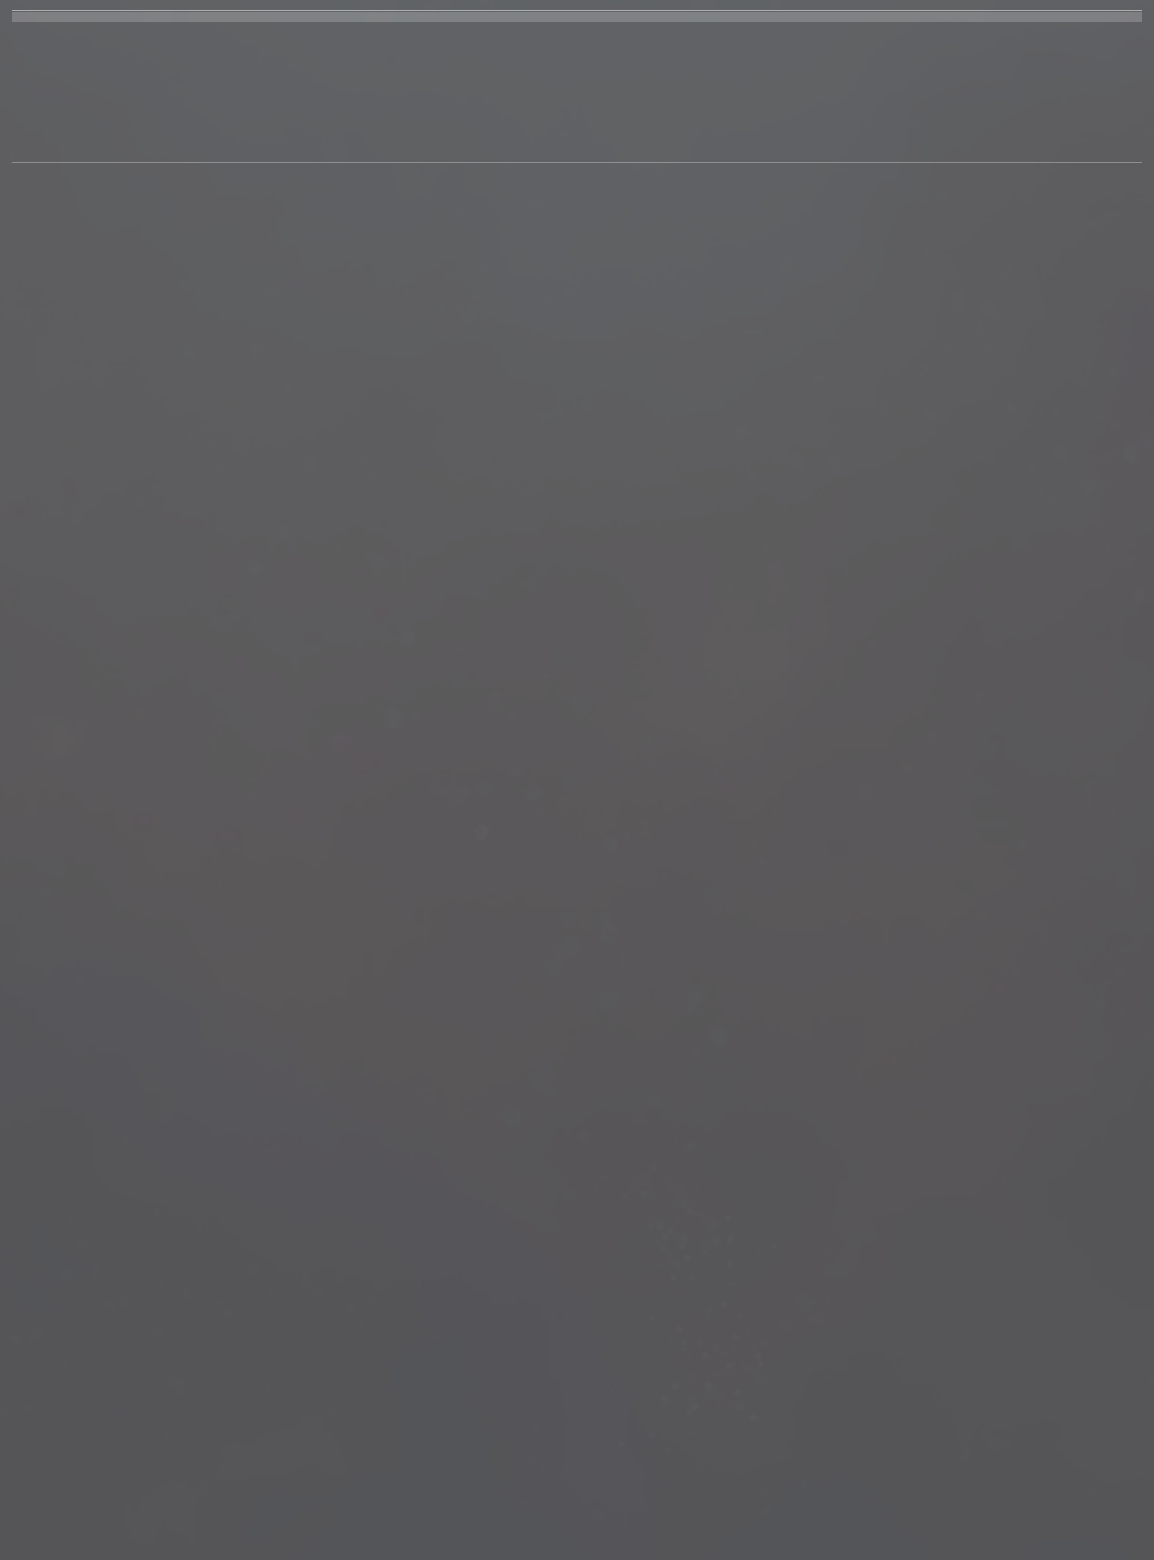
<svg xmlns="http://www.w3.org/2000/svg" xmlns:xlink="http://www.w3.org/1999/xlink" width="1154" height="1560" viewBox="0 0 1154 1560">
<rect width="100%" height="100%" fill="#56585b"/>
<image xlink:href="image0.png" x="0" y="0" width="1154" height="1560"/>
<rect fill="#ffffff" fill-opacity="0.5" x="12" y="10" width="1130" height="1"/>
<rect fill="#ffffff" fill-opacity="0.2" x="12" y="12" width="1130" height="10"/>
<rect fill="#ffffff" fill-opacity="0.3" x="12" y="162" width="1130" height="1"/>
</svg>
